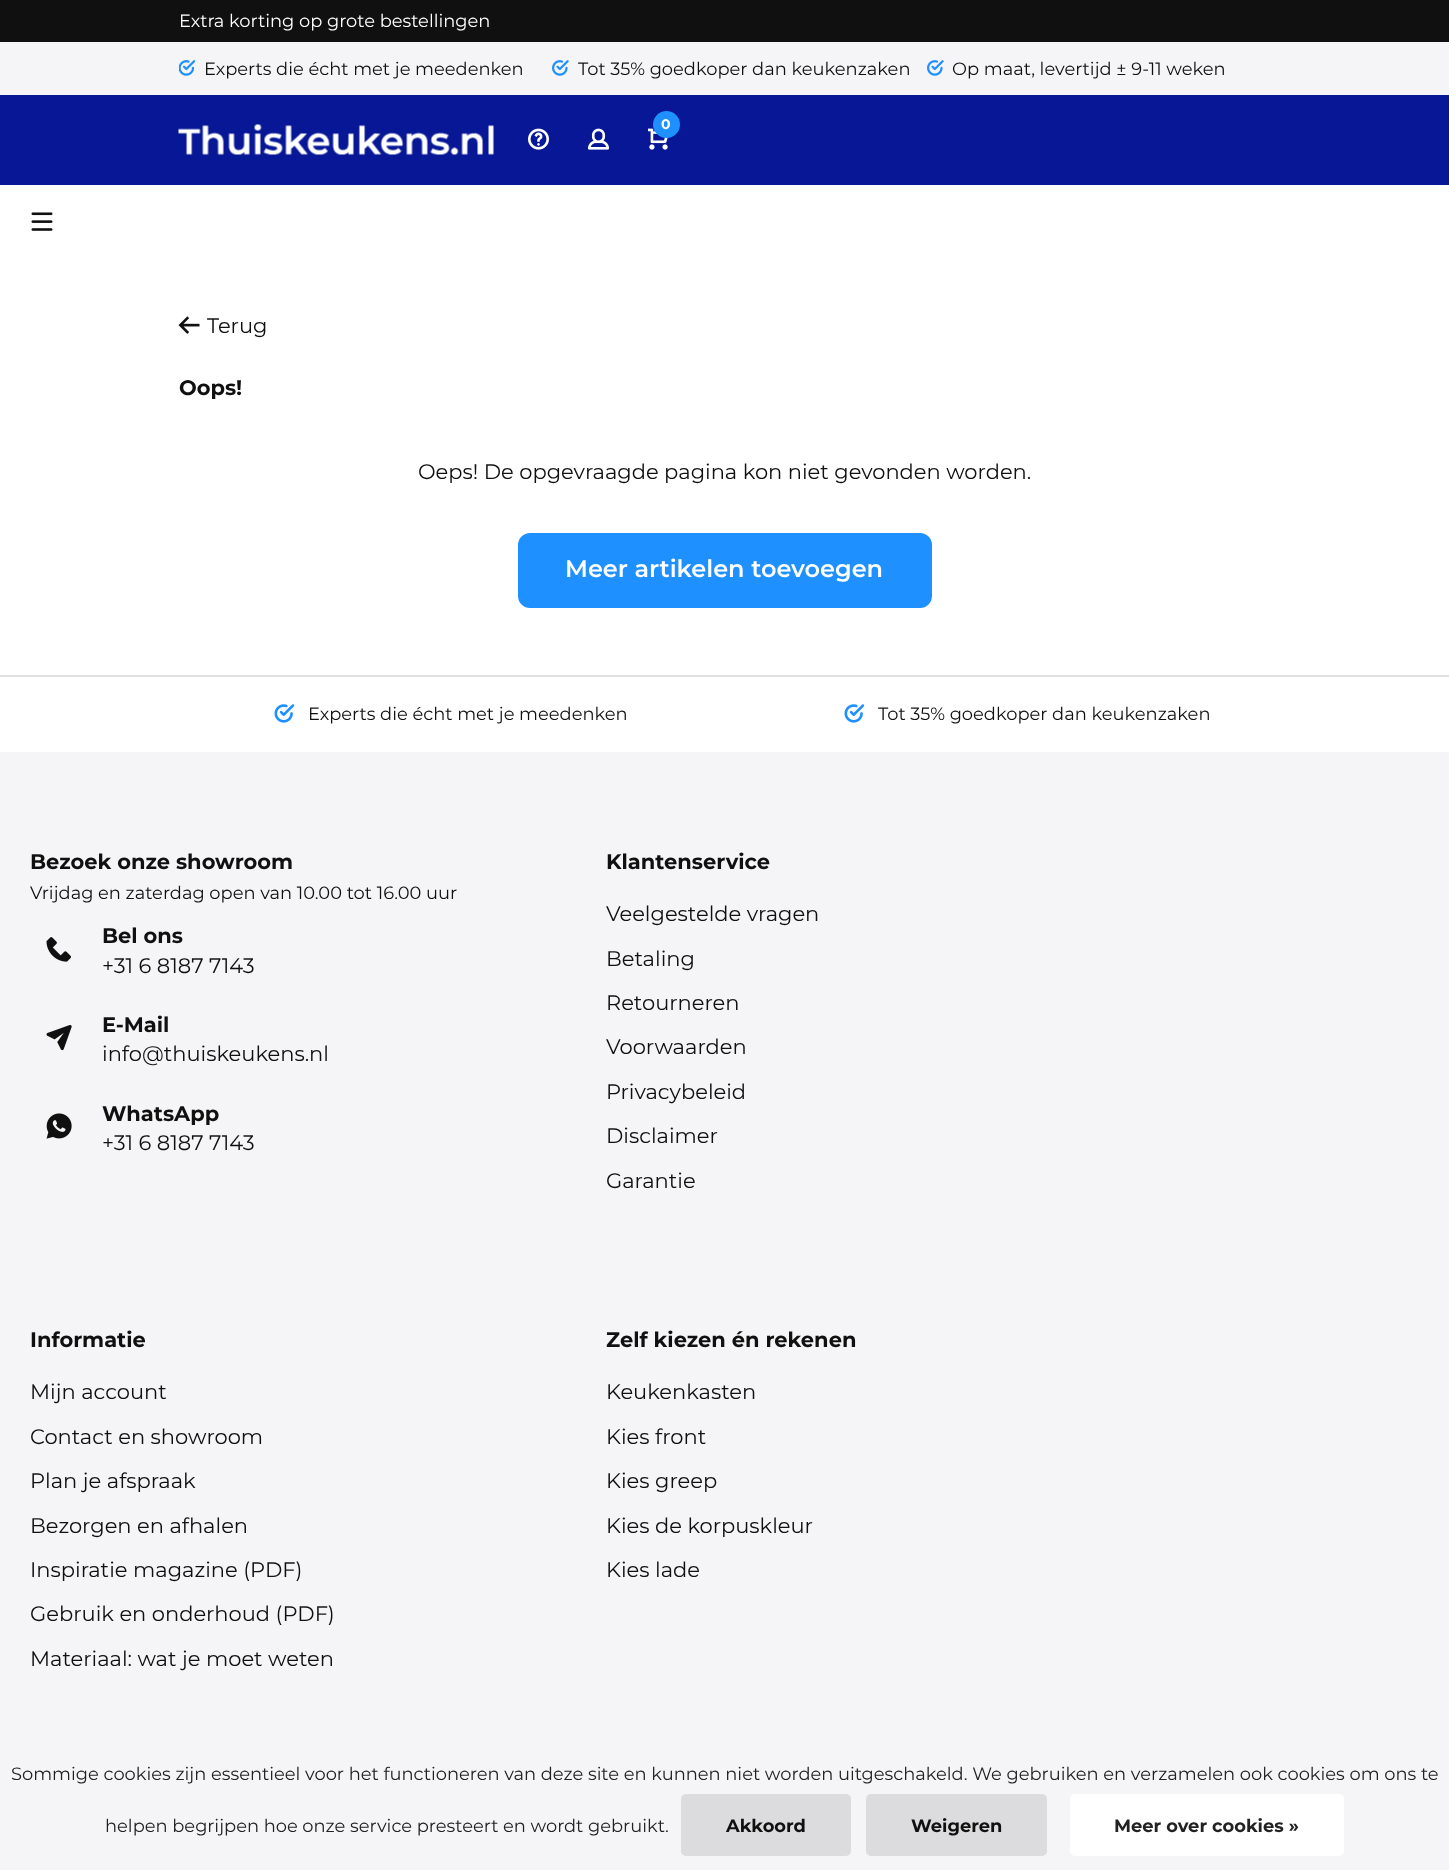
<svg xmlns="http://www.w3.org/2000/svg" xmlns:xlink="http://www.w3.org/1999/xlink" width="1449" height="1870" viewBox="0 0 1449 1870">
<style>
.cls-1{font:17.85px Montserrat;fill:#ffffff}
.cls-2{font:17.85px Montserrat;fill:#101010}
.cls-3{font:bold 14px Montserrat;fill:#ffffff}
.cls-4{font:21px Montserrat;fill:#101010}
.cls-5{font:bold 21px Montserrat;fill:#101010}
.cls-6{font:600 24px Montserrat;fill:#ffffff}
.cls-7{font:17.85px Montserrat;fill:#222222}
.cls-8{font:bold 17.85px Montserrat;fill:#101010}
.cls-9{font:bold 17.85px Montserrat;fill:#222222}
</style>
<rect width="100%" height="100%" fill="#ffffff"/>
<rect fill="#101010" x="0" y="0" width="1449" height="42"/>
<rect fill="#f5f5f7" x="0" y="42" width="1449" height="53"/>
<image xlink:href="image0.png" x="179" y="60" width="17" height="16"/>
<image xlink:href="image1.png" x="552" y="60" width="17" height="16"/>
<image xlink:href="image1.png" x="927" y="60" width="17" height="16"/>
<rect fill="#071796" x="0" y="95" width="1449" height="90"/>
<image xlink:href="image2.png" x="178" y="124" width="316" height="31"/>
<image xlink:href="image3.png" x="648" y="128" width="20" height="22"/>
<circle fill="#1e90ff" cx="666.5" cy="124.5" r="13.5"/>
<image xlink:href="image4.png" x="528" y="128" width="21" height="22"/>
<image xlink:href="image5.png" x="588" y="128" width="21" height="22"/>
<image xlink:href="image6.png" x="31" y="212" width="22" height="19"/>
<image xlink:href="image7.png" x="178" y="316" width="22" height="18"/>
<rect fill="#1e90ff" stroke="#1e90ff" stroke-width="3" x="519.5" y="534.5" width="411" height="72" rx="10.5"/>
<rect fill="#e1e1e1" x="0" y="675" width="1449" height="2"/>
<image xlink:href="image8.png" x="274" y="704" width="21" height="19"/>
<image xlink:href="image8.png" x="844" y="704" width="21" height="19"/>
<rect fill="#f5f5f7" x="0" y="752" width="1449" height="1118"/>
<image xlink:href="image9.png" x="46" y="937" width="25" height="25"/>
<image xlink:href="image10.png" x="46" y="1025" width="26" height="26"/>
<image xlink:href="image11.png" x="46" y="1113" width="26" height="26"/>
<rect fill="#dcdcde" x="681" y="1794" width="170" height="62" rx="5"/>
<rect fill="#dcdcde" x="866" y="1794" width="181" height="62" rx="5"/>
<rect fill="#ffffff" x="1070" y="1794" width="274" height="62" rx="5"/>
<text class="cls-1" x="179" y="27">Extra korting op grote bestellingen</text>
<text class="cls-2" x="204" y="75">Experts die écht met je meedenken</text>
<text class="cls-2" x="578" y="75">Tot 35% goedkoper dan keukenzaken</text>
<text class="cls-2" x="952" y="75">Op maat, levertijd ± 9-11 weken</text>
<text class="cls-3" x="661" y="129">0</text>
<text class="cls-4" x="207" y="333">Terug</text>
<text class="cls-5" x="179" y="395">Oops!</text>
<text class="cls-4" x="418" y="479">Oeps! De opgevraagde pagina kon niet gevonden worden.</text>
<text class="cls-6" x="565" y="577">Meer artikelen toevoegen</text>
<text class="cls-2" x="308" y="720">Experts die écht met je meedenken</text>
<text class="cls-2" x="878" y="720">Tot 35% goedkoper dan keukenzaken</text>
<text class="cls-5" x="30" y="869">Bezoek onze showroom</text>
<text class="cls-2" x="30" y="899">Vrijdag en zaterdag open van 10.00 tot 16.00 uur</text>
<text class="cls-5" x="102" y="943">Bel ons</text>
<text class="cls-4" x="102" y="973">+31 6 8187 7143</text>
<text class="cls-5" x="102" y="1032">E-Mail</text>
<text class="cls-4" x="102" y="1061">info@thuiskeukens.nl</text>
<text class="cls-5" x="102" y="1121">WhatsApp</text>
<text class="cls-4" x="102" y="1150">+31 6 8187 7143</text>
<text class="cls-5" x="606" y="869">Klantenservice</text>
<text class="cls-4" x="606" y="921">Veelgestelde vragen</text>
<text class="cls-4" x="606" y="966">Betaling</text>
<text class="cls-4" x="606" y="1010">Retourneren</text>
<text class="cls-4" x="606" y="1054">Voorwaarden</text>
<text class="cls-4" x="606" y="1099">Privacybeleid</text>
<text class="cls-4" x="606" y="1143">Disclaimer</text>
<text class="cls-4" x="606" y="1188">Garantie</text>
<text class="cls-5" x="30" y="1347">Informatie</text>
<text class="cls-4" x="30" y="1399">Mijn account</text>
<text class="cls-4" x="30" y="1444">Contact en showroom</text>
<text class="cls-4" x="30" y="1488">Plan je afspraak</text>
<text class="cls-4" x="30" y="1533">Bezorgen en afhalen</text>
<text class="cls-4" x="30" y="1577">Inspiratie magazine (PDF)</text>
<text class="cls-4" x="30" y="1621">Gebruik en onderhoud (PDF)</text>
<text class="cls-4" x="30" y="1666">Materiaal: wat je moet weten</text>
<text class="cls-5" x="606" y="1347">Zelf kiezen én rekenen</text>
<text class="cls-4" x="606" y="1399">Keukenkasten</text>
<text class="cls-4" x="606" y="1444">Kies front</text>
<text class="cls-4" x="606" y="1488">Kies greep</text>
<text class="cls-4" x="606" y="1533">Kies de korpuskleur</text>
<text class="cls-4" x="606" y="1577">Kies lade</text>
<text class="cls-7" x="11" y="1780">Sommige cookies zijn essentieel voor het functioneren van deze site en kunnen niet worden uitgeschakeld. We gebruiken en verzamelen ook cookies om ons te</text>
<text class="cls-7" x="105" y="1832">helpen begrijpen hoe onze service presteert en wordt gebruikt.</text>
<text class="cls-8" x="726" y="1832">Akkoord</text>
<text class="cls-8" x="911" y="1832">Weigeren</text>
<text class="cls-9" x="1114" y="1832">Meer over cookies »</text>
</svg>
